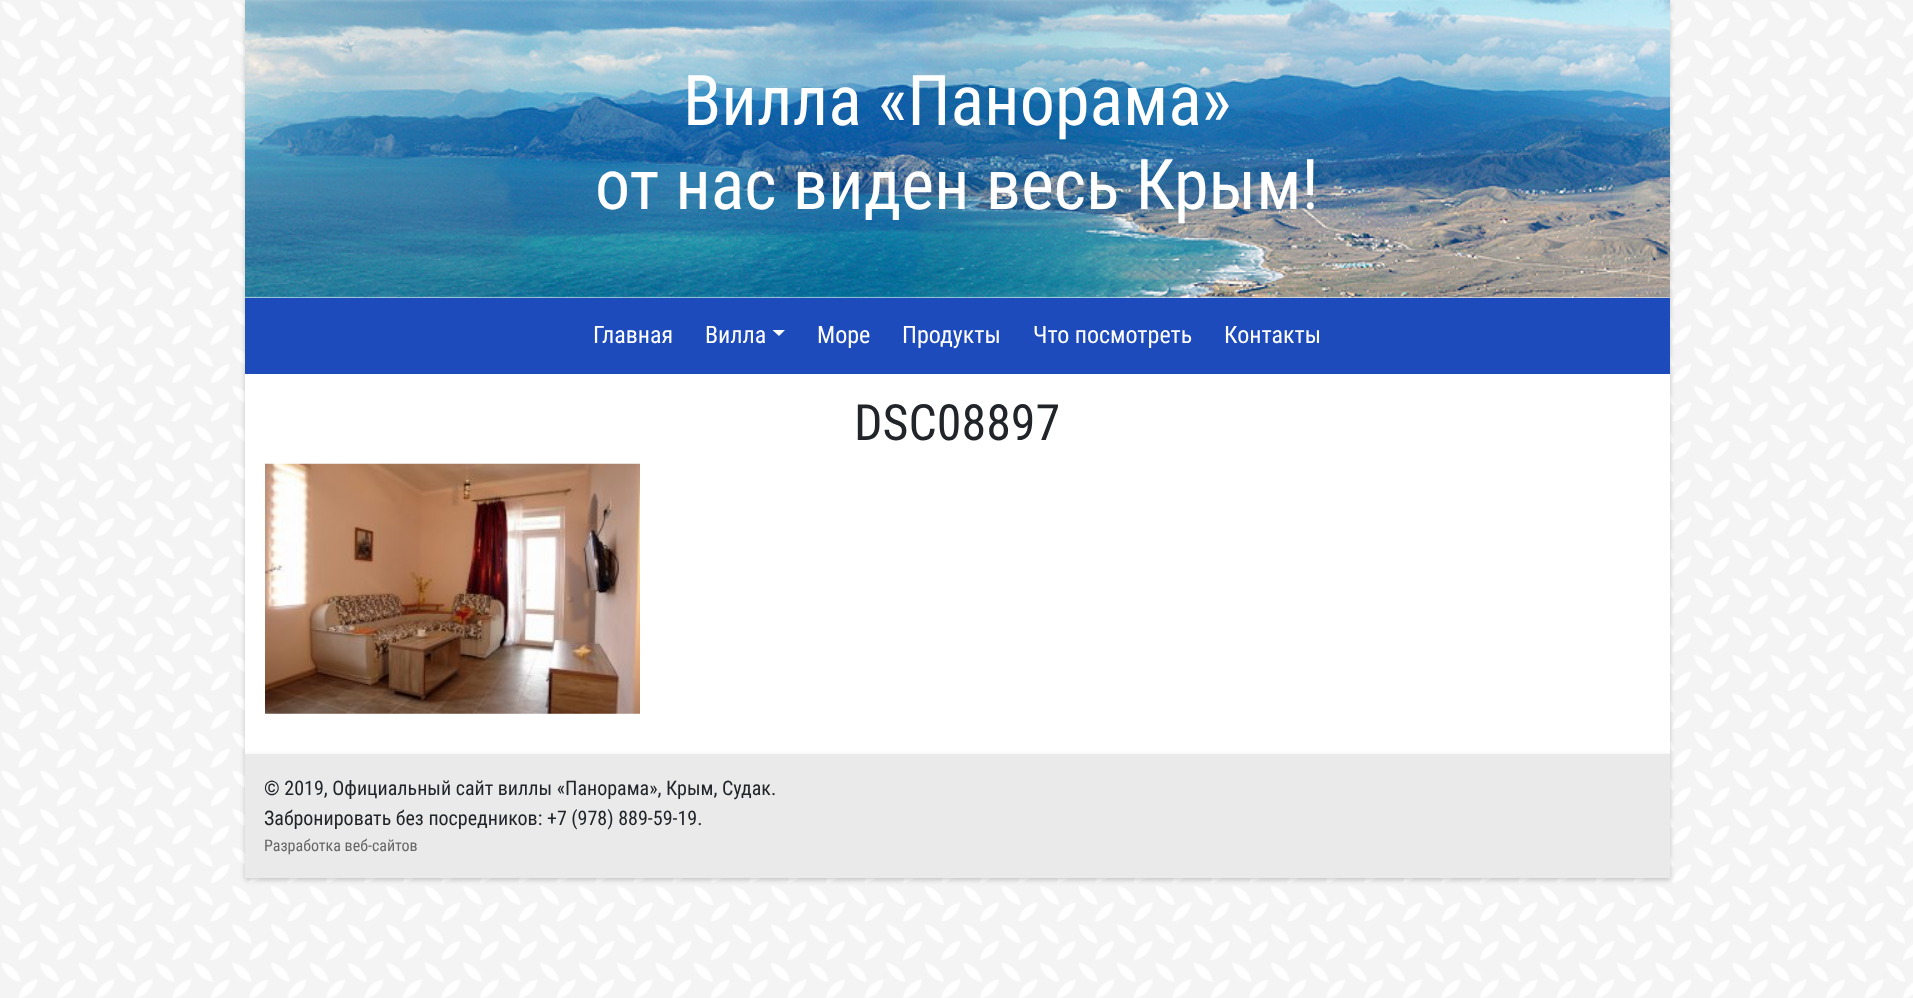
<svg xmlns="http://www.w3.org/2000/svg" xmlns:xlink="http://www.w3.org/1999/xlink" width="1913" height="998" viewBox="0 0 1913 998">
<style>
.cls-1{font:70px Roboto Condensed;fill:#ffffff}
.cls-2{font:24px Roboto Condensed;fill:#ffffff}
.cls-3{font:50px Roboto Condensed;fill:#212529}
.cls-4{font:20px Roboto Condensed;fill:#212529}
.cls-5{font:16px Roboto Condensed;fill:#666666}
</style>
<rect width="100%" height="100%" fill="#ffffff"/>
<image xlink:href="image0.png" x="0" y="0" width="1913" height="998"/>
<rect fill="#000000" fill-opacity="0.2" filter="blur(2.5px)" x="245" y="3" width="1425" height="373"/>
<rect fill="#ffffff" x="245" y="297" width="1425" height="1"/>
<image xlink:href="image1.png" x="245" y="0" width="1425" height="298"/>
<rect fill="#000000" fill-opacity="0.2" filter="blur(2.5px)" x="245" y="376" width="1425" height="380"/>
<rect fill="#1d4bbb" x="245" y="298" width="1425" height="76"/>
<path fill="#ffffff" d="M772.5 330H785L779 336Z"/>
<rect fill="#ffffff" x="245" y="374" width="1425" height="380"/>
<image xlink:href="image2.png" x="265" y="463" width="375" height="251"/>
<rect fill="#000000" fill-opacity="0.2" filter="blur(2.5px)" x="245" y="756" width="1425" height="124"/>
<rect fill="#eaeaea" x="245" y="754" width="1425" height="124"/>
<text class="cls-1" x="683" y="125">Вилла «Панорама»</text>
<text class="cls-1" x="595" y="209">от нас виден весь Крым!</text>
<text class="cls-2" x="593" y="343">Главная</text>
<text class="cls-2" x="705" y="343">Вилла</text>
<text class="cls-2" x="817" y="343">Море</text>
<text class="cls-2" x="902" y="343">Продукты</text>
<text class="cls-2" x="1033" y="343">Что посмотреть</text>
<text class="cls-2" x="1224" y="343">Контакты</text>
<text class="cls-3" x="854" y="440">DSC08897</text>
<text class="cls-4"><tspan x="264" y="795">© 2019, Официальный сайт виллы «Панорама», Крым, Судак.</tspan><tspan x="264" y="825">Забронировать без посредников: +7 (978) 889-59-19.</tspan></text>
<text class="cls-5" x="264" y="851">Разработка веб-сайтов</text>
</svg>
